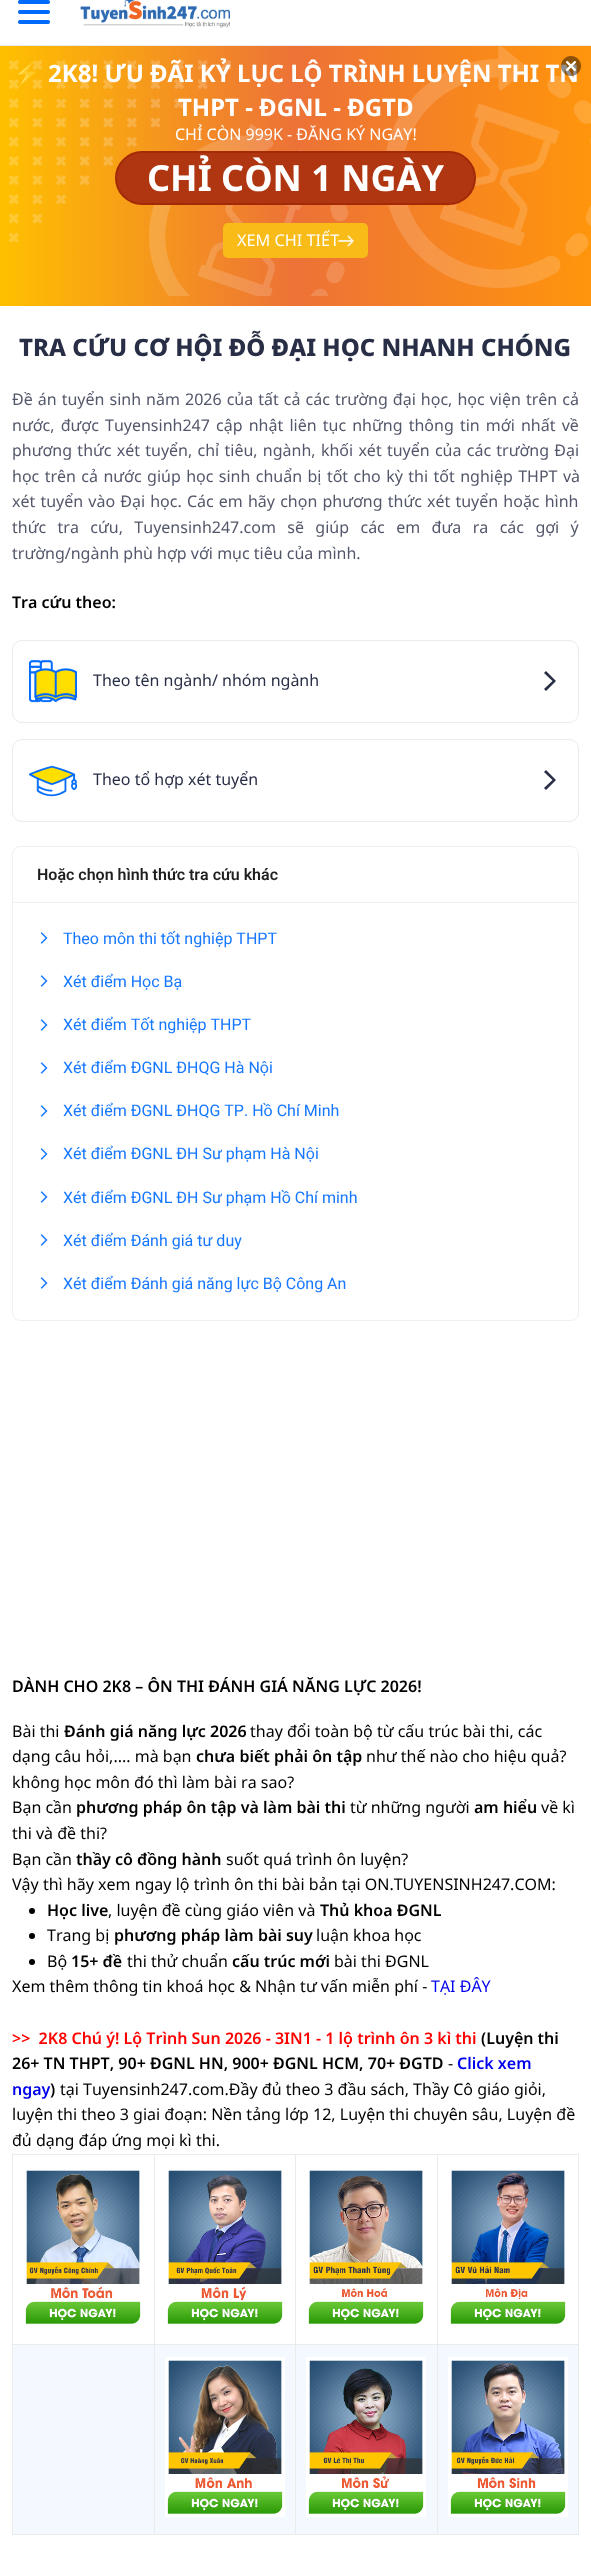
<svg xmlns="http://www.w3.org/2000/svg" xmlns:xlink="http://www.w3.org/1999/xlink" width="591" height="2549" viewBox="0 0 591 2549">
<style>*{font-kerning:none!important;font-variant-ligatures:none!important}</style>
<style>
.cls-1{font:bold 24px Noto Color Emoji;fill:#ffffff}
.cls-2{font:bold 24px Noto Sans;fill:#ffffff}
.cls-3{font:16px Noto Sans;fill:#ffffff}
.cls-4{font:bold 36px Noto Sans;fill:#ffffff}
.cls-5{font:16.25px Noto Sans;fill:#ffffff}
.cls-6{font:800 24px Noto Sans;fill:#282e45}
.cls-7{font:16px Noto Sans;fill:#53576a}
.cls-8{font:600 16px Noto Sans;fill:#000000}
.cls-9{font:16px Noto Sans;fill:#282e45}
.cls-10{font:600 16px Roboto;fill:#1f1f1f}
.cls-11{font:16px Roboto;fill:#1677ff}
.cls-12{font:16px Noto Sans;fill:#000000}
.cls-13{font:16px Noto Sans;fill:#0000ee}
.cls-14{font:600 16px Noto Sans;fill:#ff0000}
.cls-15{font:600 16px Noto Sans;fill:#0000ee}
</style>
<defs>
<linearGradient id="g1" gradientUnits="userSpaceOnUse" x1="0" y1="176" x2="591" y2="176"><stop offset="0" stop-color="#ffc000"/><stop offset="0.5" stop-color="#ed7237"/><stop offset="1" stop-color="#ff950c"/></linearGradient>
</defs>
<rect width="100%" height="100%" fill="#ffffff"/>
<rect fill="#ececec" x="0" y="45" width="591" height="1"/>
<image xlink:href="image0.png" x="18" y="0" width="32" height="24"/>
<image xlink:href="image1.png" x="80" y="0" width="150" height="28"/>
<rect fill="url(#g1)" x="0" y="46" width="591" height="260"/>
<image xlink:href="image3.png" x="9" y="46" width="582" height="250"/>
<rect fill="#b03611" stroke="#a22a06" stroke-width="2" x="116" y="152" width="359" height="52" rx="26"/>
<rect fill="#f8bb18" x="223" y="223" width="145" height="35" rx="5"/>
<rect fill="none" stroke="#ebebeb" x="12.5" y="640.5" width="566" height="82" rx="9.5"/>
<image xlink:href="image5.png" x="29" y="659" width="48" height="44"/>
<path fill="#282e45" d="M546 691L544 689L552.5 681L544 673L546 671L556 681Z"/>
<rect fill="none" stroke="#ebebeb" x="12.5" y="739.5" width="566" height="82" rx="9.5"/>
<image xlink:href="image6.png" x="29" y="765" width="48" height="32"/>
<path fill="#282e45" d="M546 790L544 788L552.5 780L544 772L546 770L556 780Z"/>
<rect fill="none" stroke="#f0f0f0" x="12.5" y="846.5" width="566" height="474" rx="7.5"/>
<rect fill="#f0f0f0" x="13" y="902" width="565" height="1"/>
<image xlink:href="image7.png" x="40" y="932" width="8" height="12"/>
<image xlink:href="image7.png" x="40" y="975" width="8" height="12"/>
<image xlink:href="image7.png" x="40" y="1019" width="8" height="12"/>
<image xlink:href="image7.png" x="40" y="1062" width="8" height="12"/>
<image xlink:href="image7.png" x="40" y="1105" width="8" height="12"/>
<image xlink:href="image7.png" x="40" y="1148" width="8" height="12"/>
<image xlink:href="image7.png" x="40" y="1191" width="8" height="12"/>
<image xlink:href="image7.png" x="40" y="1234" width="8" height="12"/>
<image xlink:href="image7.png" x="40" y="1277" width="8" height="12"/>
<circle fill="#000000" cx="32" cy="1911" r="3"/>
<circle fill="#000000" cx="32" cy="1936" r="3"/>
<circle fill="#000000" cx="32" cy="1962" r="3"/>
<rect fill="#ebebeb" x="12" y="2154" width="567" height="1"/>
<rect fill="#ebebeb" x="578" y="2154" width="1" height="381"/>
<rect fill="#ebebeb" x="12" y="2534" width="567" height="1"/>
<rect fill="#ebebeb" x="12" y="2154" width="1" height="381"/>
<image xlink:href="image8.png" x="25" y="2170" width="116" height="154"/>
<rect fill="#ebebeb" x="437" y="2344" width="142" height="1"/>
<rect fill="#f4f8ff" x="13" y="2345" width="565" height="189"/>
<rect fill="#ebebeb" x="437" y="2344" width="1" height="191"/>
<rect fill="#ebebeb" x="295" y="2344" width="143" height="1"/>
<rect fill="#ebebeb" x="295" y="2344" width="1" height="191"/>
<rect fill="#ebebeb" x="154" y="2344" width="142" height="1"/>
<rect fill="#ebebeb" x="154" y="2344" width="1" height="191"/>
<rect fill="#ebebeb" x="12" y="2344" width="143" height="1"/>
<rect fill="#ebebeb" x="154" y="2154" width="1" height="191"/>
<image xlink:href="image9.png" x="167" y="2170" width="116" height="154"/>
<rect fill="#ebebeb" x="295" y="2154" width="1" height="191"/>
<image xlink:href="image10.png" x="308" y="2170" width="116" height="154"/>
<rect fill="#ebebeb" x="437" y="2154" width="1" height="191"/>
<image xlink:href="image11.png" x="450" y="2170" width="116" height="154"/>
<image xlink:href="image12.png" x="165" y="2357" width="120" height="160"/>
<image xlink:href="image13.png" x="306" y="2357" width="120" height="160"/>
<image xlink:href="image14.png" x="448" y="2357" width="120" height="160"/>
<text class="cls-1" x="12" y="82">⚡</text>
<text class="cls-2" x="48" y="82">2K8! ƯU ĐÃI KỶ LỤC LỘ TRÌNH LUYỆN THI TN</text>
<image xlink:href="image2.png" x="561" y="56" width="20" height="20"/>
<text class="cls-2" x="178" y="116">THPT - ĐGNL - ĐGTD</text>
<text class="cls-3" x="175" y="140">CHỈ CÒN 999K - ĐĂNG KÝ NGAY!</text>
<text class="cls-4" x="147" y="191">CHỈ CÒN 1 NGÀY</text>
<text class="cls-5" x="237" y="246">XEM CHI TIẾT</text>
<image xlink:href="image4.png" x="338" y="235" width="16" height="12"/>
<text class="cls-6" x="19" y="356">TRA CỨU CƠ HỘI ĐỖ ĐẠI HỌC NHANH CHÓNG</text>
<text class="cls-7"><tspan x="12" y="405" word-spacing="0.9">Đề án tuyển sinh năm 2026 của tất cả các trường đại học, học viện trên cả</tspan><tspan x="12" y="431" word-spacing="2">nước, được Tuyensinh247 cập nhật liên tục những thông tin mới nhất về</tspan><tspan x="12" y="456" word-spacing="1.1">phương thức xét tuyển, chỉ tiêu, ngành, khối xét tuyển của các trường Đại</tspan><tspan x="12" y="482" word-spacing="1.25">học trên cả nước giúp học sinh chuẩn bị tốt cho kỳ thi tốt nghiệp THPT và</tspan><tspan x="12" y="507" word-spacing="1">xét tuyển vào Đại học. Các em hãy chọn phương thức xét tuyển hoặc hình</tspan><tspan x="12" y="533" word-spacing="7.25">thức tra cứu, Tuyensinh247.com sẽ giúp các em đưa ra các gợi ý</tspan><tspan x="12" y="559">trường/ngành phù hợp với mục tiêu của mình.</tspan></text>
<text class="cls-8" x="12" y="608">Tra cứu theo:</text>
<text class="cls-9" x="93" y="686">Theo tên ngành/ nhóm ngành</text>
<text class="cls-9" x="93" y="785">Theo tổ hợp xét tuyển</text>
<text class="cls-10" x="37" y="880">Hoặc chọn hình thức tra cứu khác</text>
<text class="cls-11" x="63" y="944">Theo môn thi tốt nghiệp THPT</text>
<text class="cls-11" x="63" y="987">Xét điểm Học Bạ</text>
<text class="cls-11" x="63" y="1030">Xét điểm Tốt nghiệp THPT</text>
<text class="cls-11" x="63" y="1073">Xét điểm ĐGNL ĐHQG Hà Nội</text>
<text class="cls-11" x="63" y="1116">Xét điểm ĐGNL ĐHQG TP. Hồ Chí Minh</text>
<text class="cls-11" x="63" y="1159">Xét điểm ĐGNL ĐH Sư phạm Hà Nội</text>
<text class="cls-11" x="63" y="1203">Xét điểm ĐGNL ĐH Sư phạm Hồ Chí minh</text>
<text class="cls-11" x="63" y="1246">Xét điểm Đánh giá tư duy</text>
<text class="cls-11" x="63" y="1289">Xét điểm Đánh giá năng lực Bộ Công An</text>
<text class="cls-8" x="12" y="1692">DÀNH CHO 2K8 – ÔN THI ĐÁNH GIÁ NĂNG LỰC 2026!</text>
<text class="cls-12" x="12" y="1737">Bài thi</text>
<text class="cls-8" x="64" y="1737">Đánh giá năng lực 2026</text>
<text class="cls-12" x="250" y="1737">thay đổi toàn bộ từ cấu trúc bài thi, các</text>
<text class="cls-12" x="12" y="1762">dạng câu hỏi,.... mà bạn</text>
<text class="cls-8" x="196" y="1762">chưa biết phải ôn tập</text>
<text class="cls-12" x="366" y="1762">như thế nào cho hiệu quả?</text>
<text class="cls-12"><tspan x="12" y="1788">không học môn đó thì làm bài ra sao?</tspan><tspan x="12" y="1813">Bạn cần</tspan></text>
<text class="cls-8" x="76" y="1813">phương pháp ôn tập và làm bài thi</text>
<text class="cls-12" x="350" y="1813">từ những người</text>
<text class="cls-8" x="474" y="1813">am hiểu</text>
<text class="cls-12" x="541" y="1813">về kì</text>
<text class="cls-12"><tspan x="12" y="1839">thi và đề thi?</tspan><tspan x="12" y="1865">Bạn cần</tspan></text>
<text class="cls-8" x="76" y="1865">thầy cô đồng hành</text>
<text class="cls-12" x="226" y="1865">suốt quá trình ôn luyện?</text>
<text class="cls-12" x="12" y="1890">Vậy thì hãy xem ngay lộ trình ôn thi bài bản tại ON.TUYENSINH247.COM:</text>
<text class="cls-8" x="47" y="1916">Học live</text>
<text class="cls-12" x="108" y="1916">, luyện đề cùng giáo viên và</text>
<text class="cls-8" x="320" y="1916">Thủ khoa ĐGNL</text>
<text class="cls-12" x="47" y="1941">Trang bị</text>
<text class="cls-8" x="114" y="1941">phương pháp làm bài suy</text>
<text class="cls-12" x="316" y="1941">luận khoa học</text>
<text class="cls-12" x="47" y="1967">Bộ</text>
<text class="cls-8" x="71" y="1967">15+ đề</text>
<text class="cls-12" x="127" y="1967">thi thử chuẩn</text>
<text class="cls-8" x="232" y="1967">cấu trúc mới</text>
<text class="cls-12" x="334" y="1967">bài thi ĐGNL</text>
<text class="cls-12" x="12" y="1992">Xem thêm thông tin khoá học &amp; Nhận tư vấn miễn phí -</text>
<text class="cls-13" x="431" y="1992">TẠI ĐÂY</text>
<text class="cls-14" xml:space="preserve" x="12" y="2044">&gt;&gt;  2K8 Chú ý! Lộ Trình Sun 2026 - 3IN1 - 1 lộ trình ôn 3 kì thi</text>
<text class="cls-8" x="481" y="2044">(Luyện thi</text>
<text class="cls-8" x="12" y="2069">26+ TN THPT, 90+ ĐGNL HN, 900+ ĐGNL HCM, 70+ ĐGTD</text>
<text class="cls-12" x="448" y="2069">-</text>
<text class="cls-15" x="457" y="2069">Click xem</text>
<text class="cls-15" x="12" y="2095">ngay</text>
<text class="cls-8" x="50" y="2095">)</text>
<text class="cls-12" x="60" y="2095">tại Tuyensinh247.com.Đầy đủ theo 3 đầu sách, Thầy Cô giáo giỏi,</text>
<text class="cls-12"><tspan x="12" y="2120">luyện thi theo 3 giai đoạn: Nền tảng lớp 12, Luyện thi chuyên sâu, Luyện đề</tspan><tspan x="12" y="2146">đủ dạng đáp ứng mọi kì thi.</tspan></text>
</svg>
